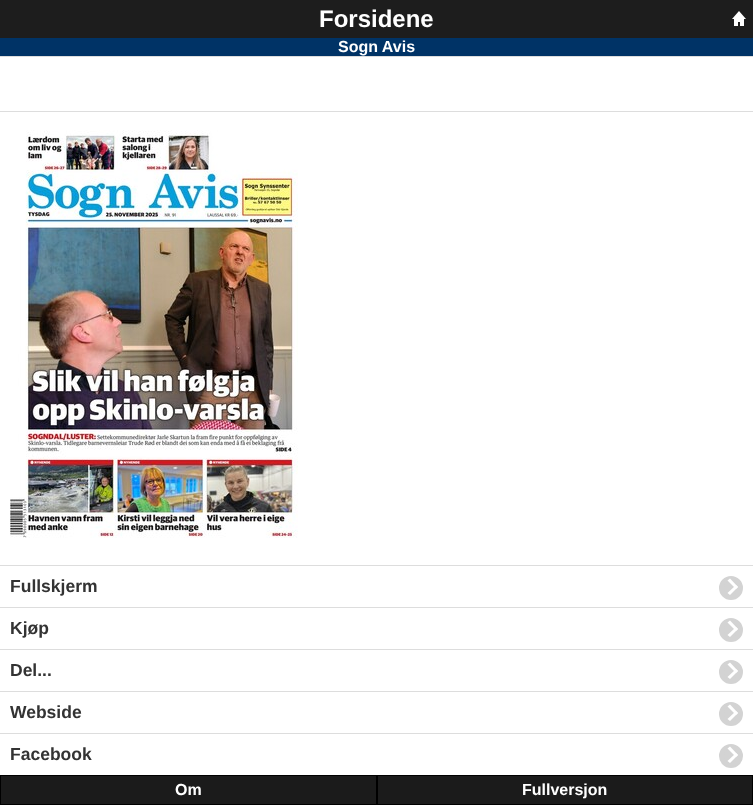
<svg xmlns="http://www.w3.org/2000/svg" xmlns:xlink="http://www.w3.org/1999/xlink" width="753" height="812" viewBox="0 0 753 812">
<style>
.cls-1{font:bold 24px Liberation Sans;fill:#ffffff}
.cls-2{font:bold 16px Liberation Sans;fill:#ffffff}
.cls-3{font:bold 17.5px Liberation Sans;fill:#333333}
</style>
<rect width="100%" height="100%" fill="#ffffff"/>
<rect fill="#1d1d1d" x="0" y="0" width="753" height="38"/>
<path fill="#ffffff" d="M746 19H732L739 11Z"/>
<rect fill="#ffffff" x="734" y="19" width="10" height="3"/>
<rect fill="#ffffff" x="740" y="19" width="4" height="7"/>
<rect fill="#ffffff" x="734" y="19" width="4" height="7"/>
<rect fill="#003366" x="0" y="38" width="753" height="18"/>
<rect fill="#dddddd" x="0" y="56" width="753" height="1"/>
<rect fill="#dddddd" x="0" y="111" width="753" height="1"/>
<image xlink:href="image0.png" x="10" y="130" width="288" height="408"/>
<rect fill="#dddddd" x="0" y="565" width="753" height="1"/>
<circle fill="#d3d3d3" stroke="#d3d3d3" stroke-width="5" cx="731" cy="588" r="9.5"/>
<path fill="#ffffff" d="M730 578.5L738 587L736 589L727.5 580.5Z"/>
<path fill="#ffffff" d="M736 585L738 587L730 595L727.5 593Z"/>
<rect fill="#dddddd" x="0" y="607" width="753" height="1"/>
<circle fill="#d3d3d3" stroke="#d3d3d3" stroke-width="5" cx="731" cy="630" r="9.5"/>
<path fill="#ffffff" d="M730 620.5L738 629L736 631L727.5 622.5Z"/>
<path fill="#ffffff" d="M736 627L738 629L730 637L727.5 635Z"/>
<rect fill="#dddddd" x="0" y="649" width="753" height="1"/>
<circle fill="#d3d3d3" stroke="#d3d3d3" stroke-width="5" cx="731" cy="672" r="9.5"/>
<path fill="#ffffff" d="M730 662.5L738 671L736 673L727.5 664.5Z"/>
<path fill="#ffffff" d="M736 669L738 671L730 679L727.5 677Z"/>
<rect fill="#dddddd" x="0" y="691" width="753" height="1"/>
<circle fill="#d3d3d3" stroke="#d3d3d3" stroke-width="5" cx="731" cy="714" r="9.5"/>
<path fill="#ffffff" d="M730 704.5L738 713L736 715L727.5 706.5Z"/>
<path fill="#ffffff" d="M736 711L738 713L730 721L727.5 719Z"/>
<rect fill="#dddddd" x="0" y="733" width="753" height="1"/>
<circle fill="#d3d3d3" stroke="#d3d3d3" stroke-width="5" cx="731" cy="756" r="9.5"/>
<path fill="#ffffff" d="M730 746.5L738 755L736 757L727.5 748.5Z"/>
<path fill="#ffffff" d="M736 753L738 755L730 763L727.5 761Z"/>
<rect fill="#1b1b1b" x="1" y="776" width="751" height="28"/>
<rect fill="none" stroke="#000000" x="0.5" y="775.5" width="376" height="29"/>
<rect fill="none" stroke="#000000" x="377.5" y="775.5" width="375" height="29"/>
<text class="cls-1" x="319" y="27">Forsidene</text>
<text class="cls-2" x="338" y="52">Sogn Avis</text>
<text class="cls-3" x="10" y="592">Fullskjerm</text>
<text class="cls-3" x="10" y="634">Kjøp</text>
<text class="cls-3" x="10" y="676">Del...</text>
<text class="cls-3" x="10" y="718">Webside</text>
<text class="cls-3" x="10" y="760">Facebook</text>
<text class="cls-2" x="175" y="795">Om</text>
<text class="cls-2" x="522" y="795">Fullversjon</text>
</svg>
